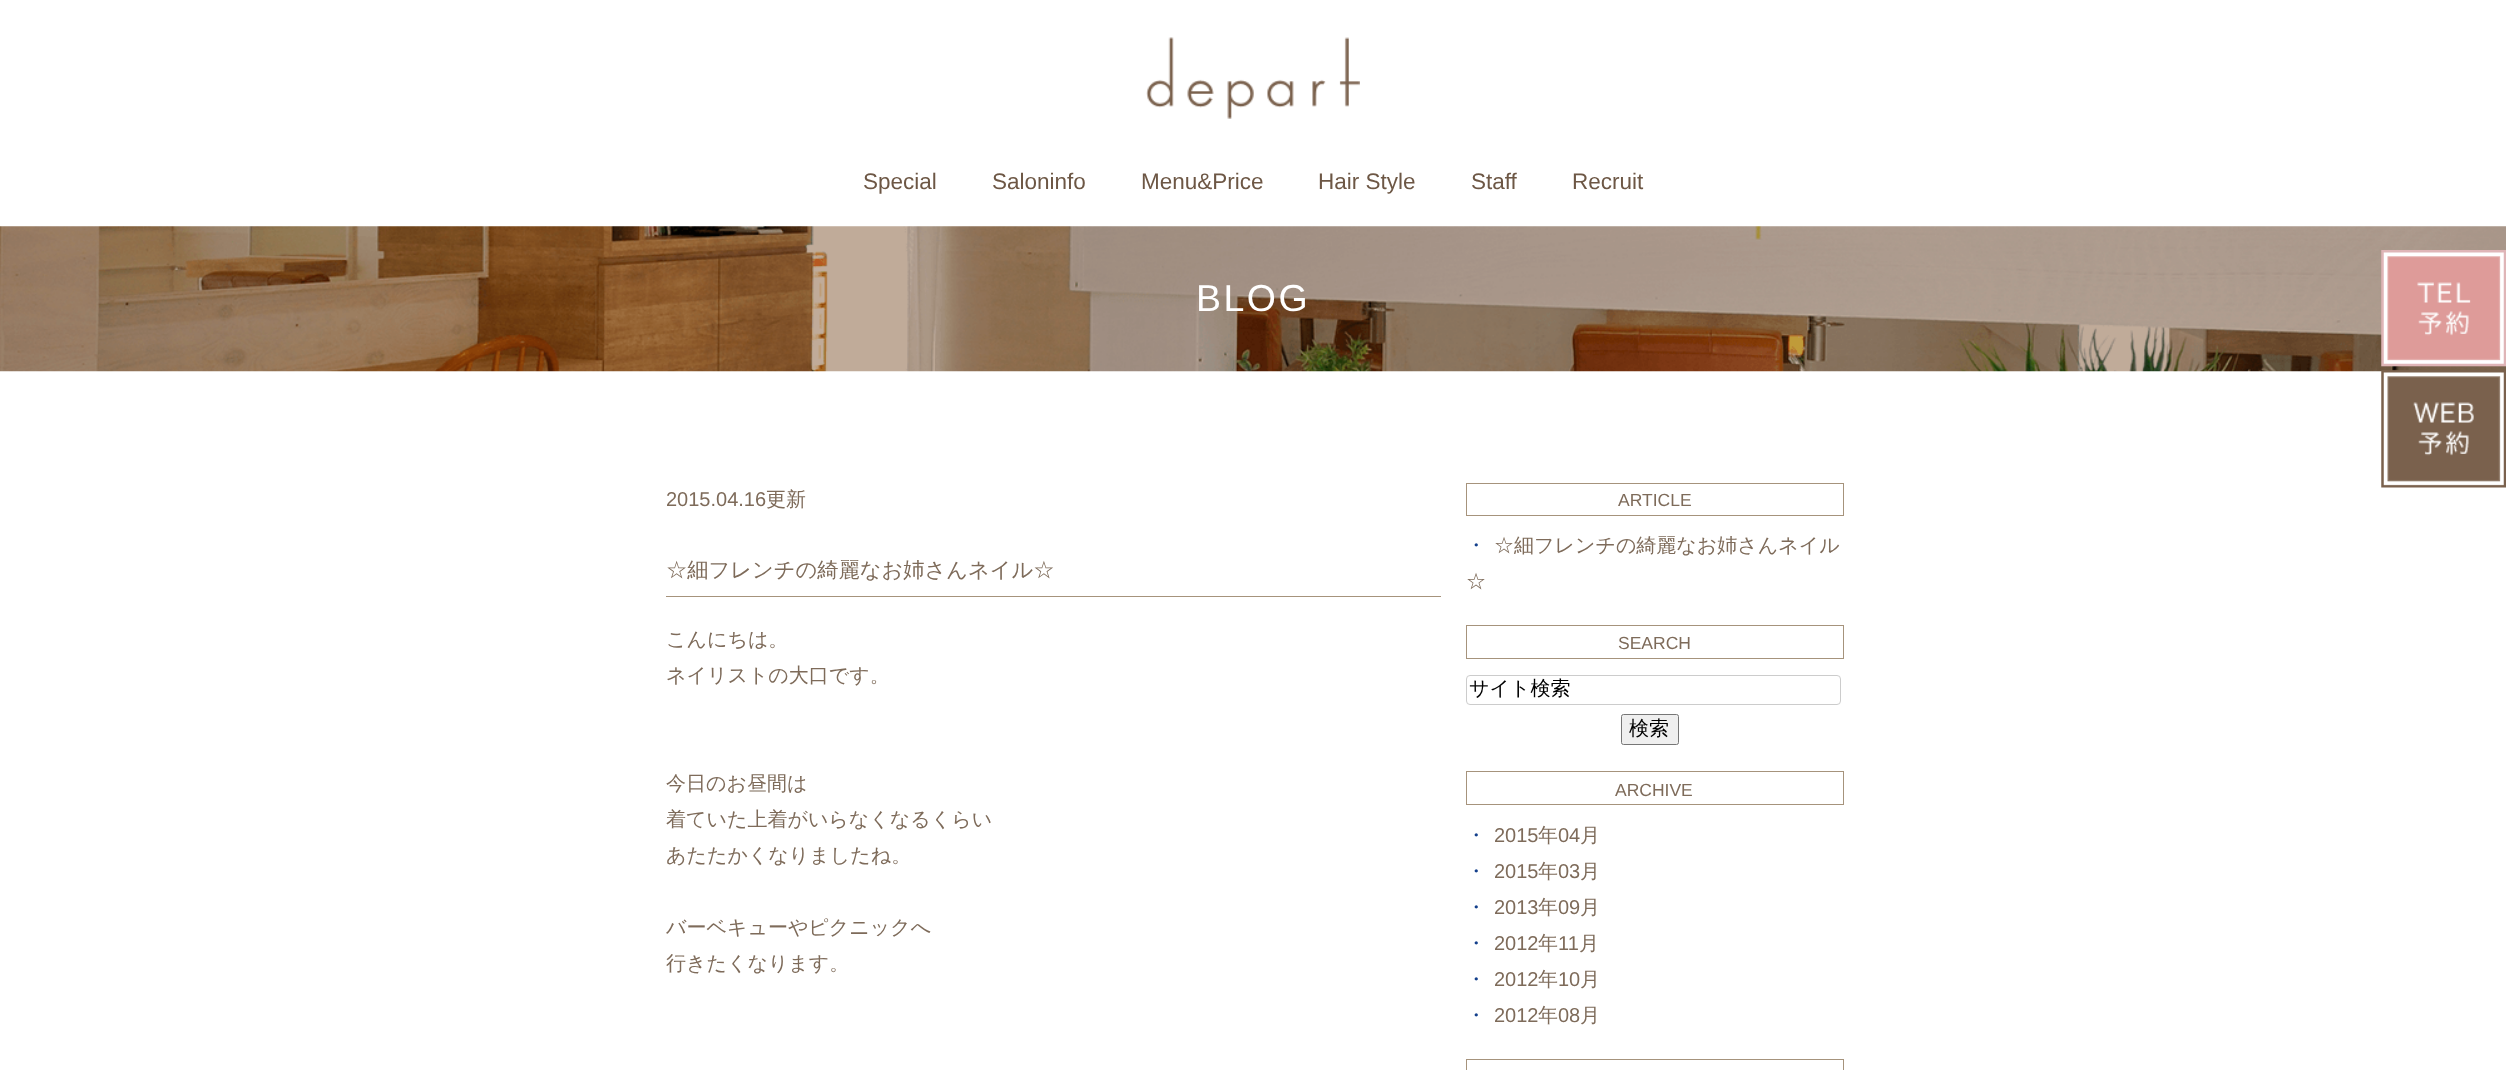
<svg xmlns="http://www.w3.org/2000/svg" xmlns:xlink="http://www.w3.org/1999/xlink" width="2506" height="1070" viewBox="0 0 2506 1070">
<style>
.cls-1{font:22.5px Liberation Sans;fill:#6d5745}
.cls-2{font:37.5px Liberation Sans;letter-spacing:2.5px;fill:#ffffff}
.cls-3{font:20px Liberation Sans;fill:#7e6b5a}
.cls-4{font:500 20px WenQuanYi Zen Hei;fill:#7e6b5a}
.cls-5{font:500 21.25px WenQuanYi Zen Hei;fill:#7e6b5a}
.cls-6{font:17.5px Liberation Sans;fill:#7e6b5a}
.cls-7{font:500 20px WenQuanYi Zen Hei;fill:#14408c}
.cls-8{font:500 20px WenQuanYi Zen Hei;fill:#000000}
</style>
<rect width="100%" height="100%" fill="#ffffff"/>
<image xlink:href="image0.png" x="1146" y="37" width="214" height="82"/>
<image xlink:href="image1.png" x="0" y="226" width="2506" height="146"/>
<image xlink:href="image2.png" x="2381" y="250" width="125" height="238"/>
<rect fill="#a6937c" x="666" y="596" width="775" height="1"/>
<rect fill="none" stroke="#a6937c" x="1466.5" y="483.5" width="377" height="32"/>
<rect fill="none" stroke="#a6937c" x="1466.5" y="625.5" width="377" height="33"/>
<rect fill="none" stroke="#cccccc" x="1466.5" y="675.5" width="374" height="29" rx="3.5"/>
<rect fill="#efefef" stroke="#767676" x="1621.5" y="714.5" width="57" height="30" rx="2"/>
<rect fill="none" stroke="#a6937c" x="1466.5" y="771.5" width="377" height="33"/>
<rect fill="none" stroke="#a6937c" x="1466.5" y="1059.5" width="377" height="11"/>
<text class="cls-1" x="863" y="189">Special</text>
<text class="cls-1" x="992" y="189">Saloninfo</text>
<text class="cls-1" x="1141" y="189">Menu&amp;Price</text>
<text class="cls-1" x="1318" y="189">Hair Style</text>
<text class="cls-1" x="1471" y="189">Staff</text>
<text class="cls-1" x="1572" y="189">Recruit</text>
<text class="cls-2" x="1196" y="311">BLOG</text>
<text class="cls-3" x="666" y="506">2015.04.16</text>
<text class="cls-4" x="766" y="506">更新</text>
<text class="cls-5" x="666" y="577">☆細フレンチの綺麗なお姉さんネイル☆</text>
<text class="cls-4"><tspan x="666" y="646">こんにちは。</tspan><tspan x="666" y="682">ネイリストの大口です。</tspan></text>
<text class="cls-4"><tspan x="666" y="790">今日のお昼間は</tspan><tspan x="666" y="826">着ていた上着がいらなくなるくらい</tspan><tspan x="666" y="862">あたたかくなりましたね。</tspan></text>
<text class="cls-4"><tspan x="666" y="934">バーベキューやピクニックへ</tspan><tspan x="666" y="970">行きたくなります。</tspan></text>
<text class="cls-6" x="1618" y="506">ARTICLE</text>
<text class="cls-7" x="1466" y="552">・</text>
<text class="cls-4" x="1494" y="552">☆細フレンチの綺麗なお姉さんネイル</text>
<text class="cls-4" x="1466" y="588">☆</text>
<text class="cls-6" x="1618" y="649">SEARCH</text>
<text class="cls-8" x="1469" y="695">サイト検索</text>
<text class="cls-8" x="1629" y="735">検索</text>
<text class="cls-6" x="1615" y="796">ARCHIVE</text>
<text class="cls-7" x="1466" y="842">・</text>
<text class="cls-3" x="1494" y="842">2015</text>
<text class="cls-4" x="1538" y="842">年</text>
<text class="cls-3" x="1558" y="842">04</text>
<text class="cls-4" x="1580" y="842">月</text>
<text class="cls-7" x="1466" y="878">・</text>
<text class="cls-3" x="1494" y="878">2015</text>
<text class="cls-4" x="1538" y="878">年</text>
<text class="cls-3" x="1558" y="878">03</text>
<text class="cls-4" x="1580" y="878">月</text>
<text class="cls-7" x="1466" y="914">・</text>
<text class="cls-3" x="1494" y="914">2013</text>
<text class="cls-4" x="1538" y="914">年</text>
<text class="cls-3" x="1558" y="914">09</text>
<text class="cls-4" x="1580" y="914">月</text>
<text class="cls-7" x="1466" y="950">・</text>
<text class="cls-3" x="1494" y="950">2012</text>
<text class="cls-4" x="1538" y="950">年</text>
<text class="cls-3" x="1558" y="950">11</text>
<text class="cls-4" x="1579" y="950">月</text>
<text class="cls-7" x="1466" y="986">・</text>
<text class="cls-3" x="1494" y="986">2012</text>
<text class="cls-4" x="1538" y="986">年</text>
<text class="cls-3" x="1558" y="986">10</text>
<text class="cls-4" x="1580" y="986">月</text>
<text class="cls-7" x="1466" y="1022">・</text>
<text class="cls-3" x="1494" y="1022">2012</text>
<text class="cls-4" x="1538" y="1022">年</text>
<text class="cls-3" x="1558" y="1022">08</text>
<text class="cls-4" x="1580" y="1022">月</text>
</svg>
